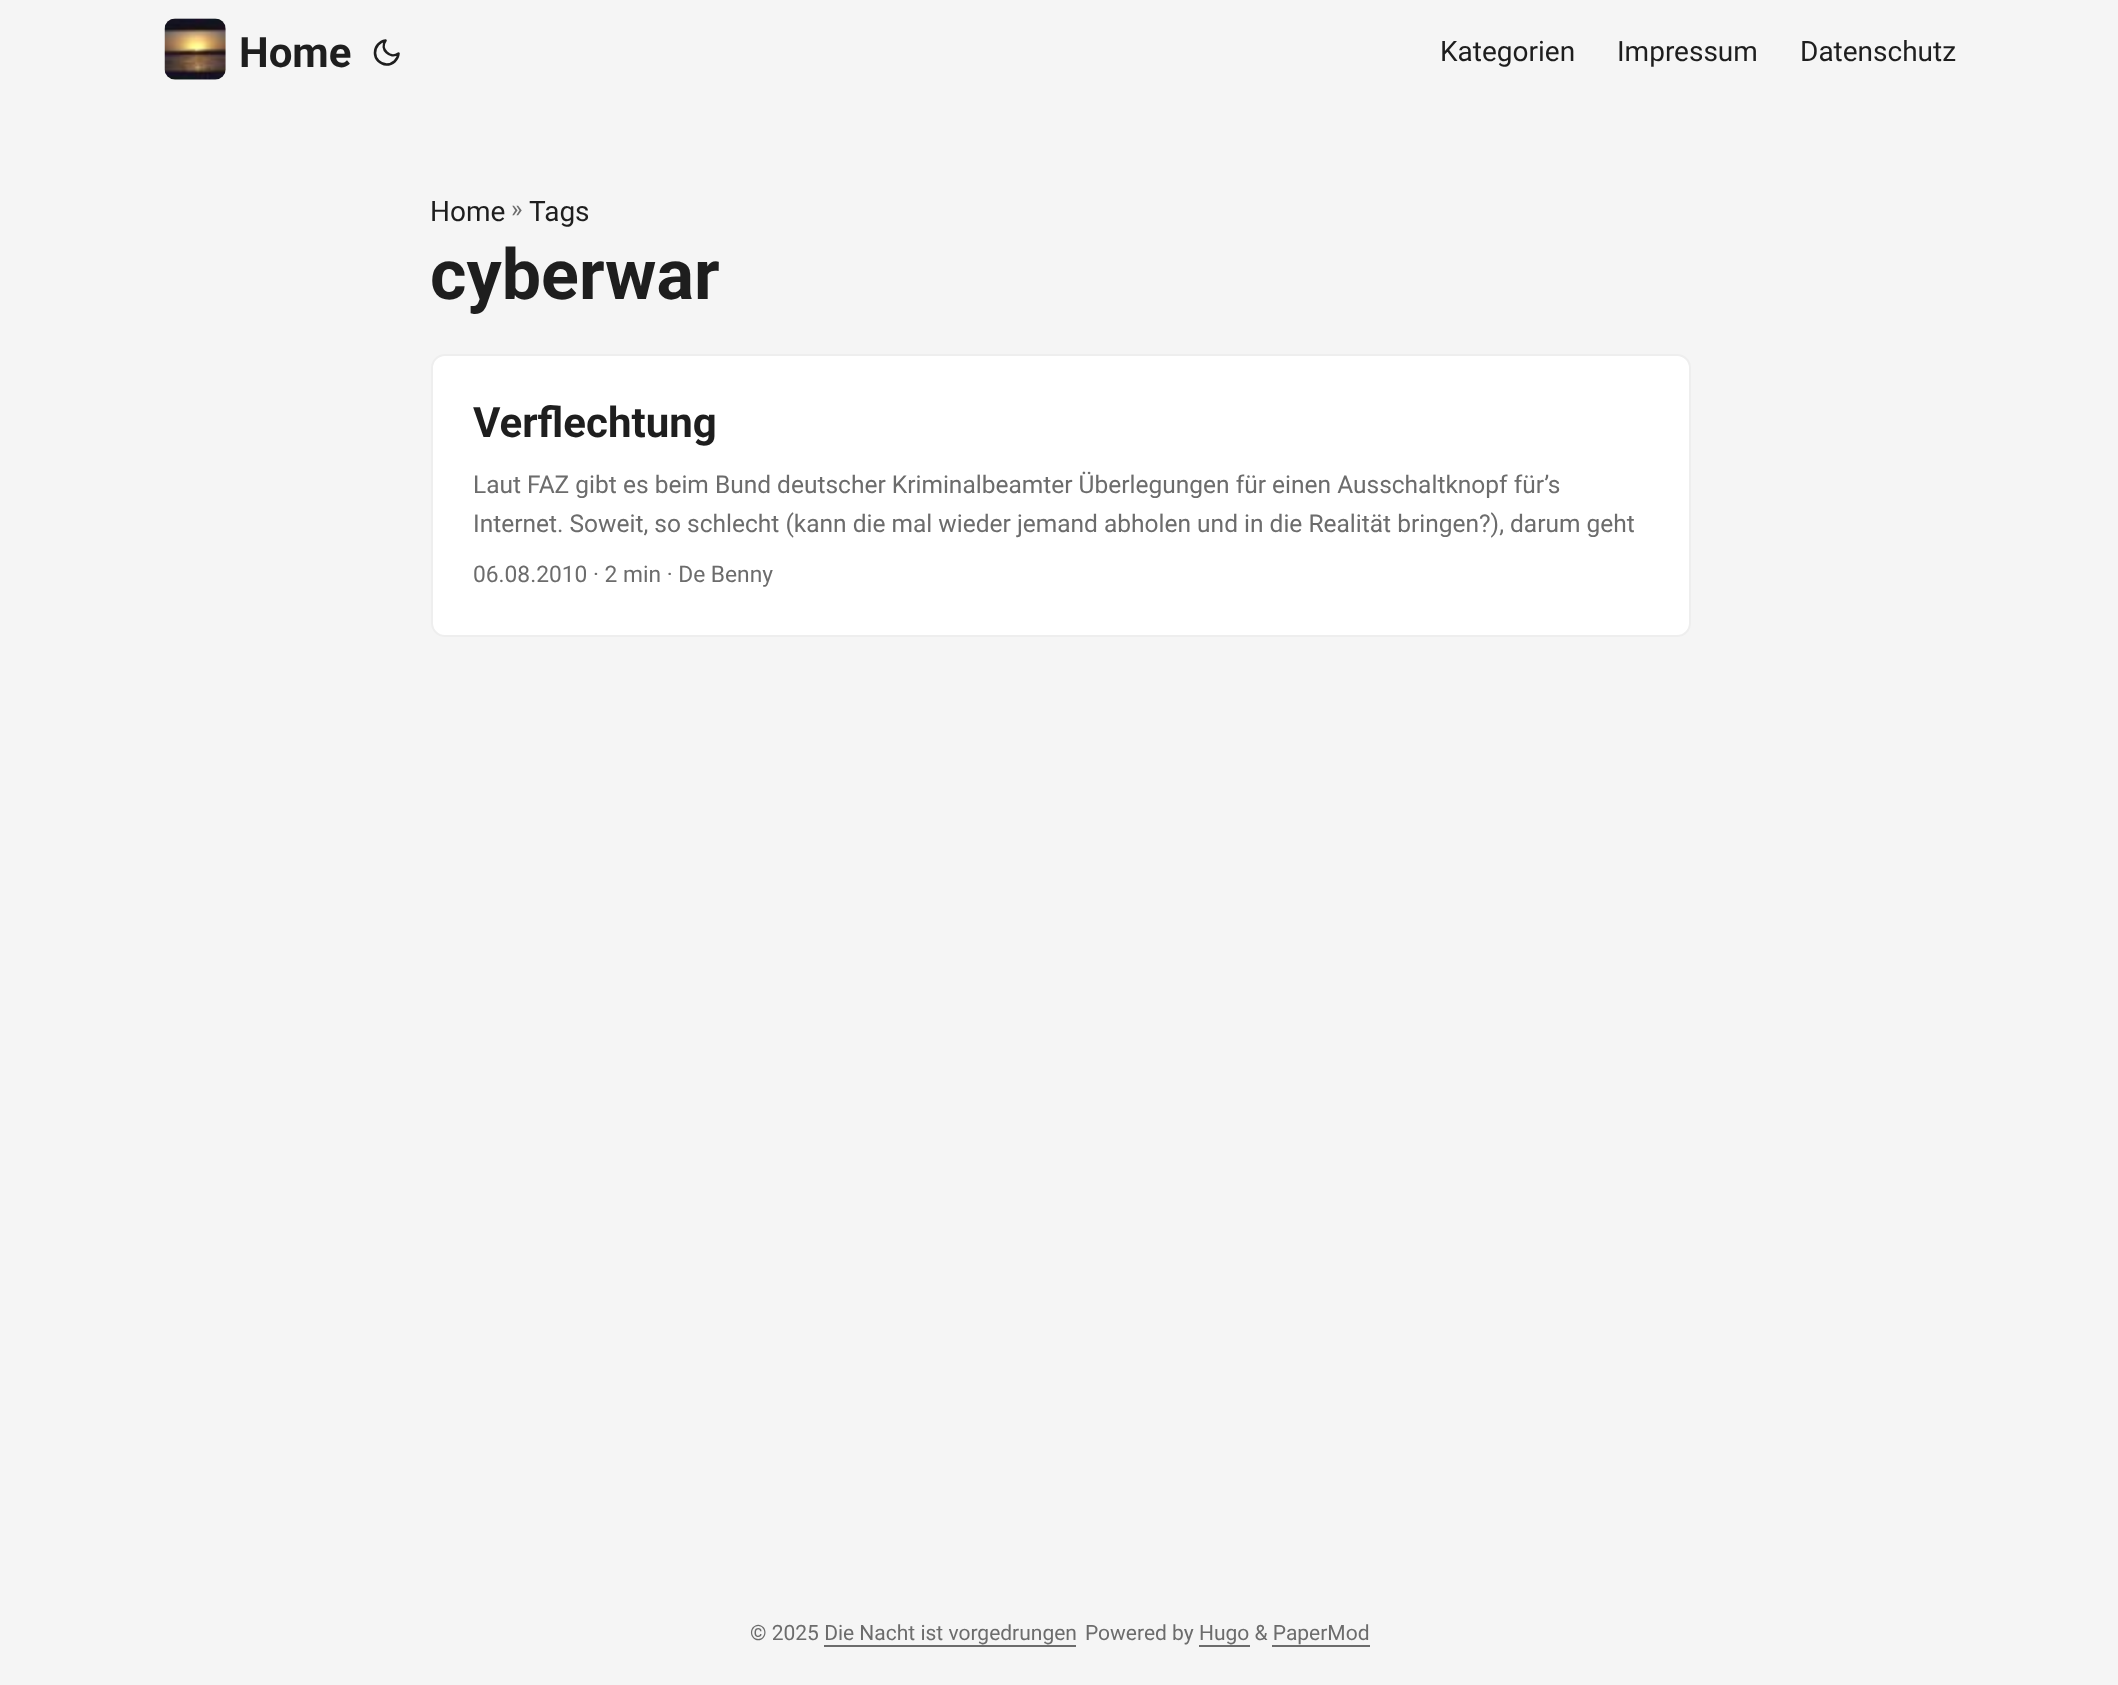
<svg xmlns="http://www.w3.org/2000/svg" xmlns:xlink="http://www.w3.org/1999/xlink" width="2118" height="1685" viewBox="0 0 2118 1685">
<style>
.cls-1{font:bold 42px Roboto;fill:#1e1e1e}
.cls-2{font:28px Roboto;fill:#1e1e1e}
.cls-3{font:24.5px Roboto;fill:#6c6c6c}
.cls-4{font:bold 70px Roboto;fill:#1e1e1e}
.cls-5{font:22.75px Roboto;fill:#6c6c6c}
.cls-6{font:21px Roboto;fill:#6c6c6c}
</style>
<rect width="100%" height="100%" fill="#f5f5f5"/>
<image xlink:href="image0.png" x="164" y="18" width="62" height="62"/>
<path fill="none" stroke="#1e1e1e" stroke-width="2.6" stroke-linecap="round" stroke-linejoin="round" d="M398.5 53.5C398 60 392.5 64.5 386.5 64.5C380 64 375 59 375 53C375 46.5 379.5 41.5 385.5 40.5C379.5 49 390 59.5 398.5 53.5Z"/>
<rect fill="#ffffff" stroke="#eeeeee" stroke-width="2" x="432" y="355" width="1258" height="281" rx="13"/>
<rect fill="#6c6c6c" x="824" y="1645" width="252" height="2"/>
<rect fill="#6c6c6c" x="1199" y="1645" width="51" height="2"/>
<rect fill="#6c6c6c" x="1272" y="1645" width="98" height="2"/>
<text class="cls-1" x="239" y="67">Home</text>
<text class="cls-2" x="1440" y="61">Kategorien</text>
<text class="cls-2" x="1617" y="61">Impressum</text>
<text class="cls-2" x="1800" y="61">Datenschutz</text>
<text class="cls-2" x="430" y="221">Home</text>
<text class="cls-3" x="511" y="217">»</text>
<text class="cls-2" x="529" y="221">Tags</text>
<text class="cls-4" x="430" y="299">cyberwar</text>
<text class="cls-1" x="473" y="437">Verflechtung</text>
<text class="cls-3"><tspan x="473" y="493">Laut FAZ gibt es beim Bund deutscher Kriminalbeamter Überlegungen für einen Ausschaltknopf für’s</tspan><tspan x="473" y="532">Internet. Soweit, so schlecht (kann die mal wieder jemand abholen und in die Realität bringen?), darum geht</tspan></text>
<text class="cls-5" x="473" y="582">06.08.2010 · 2 min · De Benny</text>
<text class="cls-6" x="750" y="1640">© 2025 Die Nacht ist vorgedrungen</text>
<text class="cls-6" x="1085" y="1640">Powered by Hugo &amp; PaperMod</text>
</svg>
